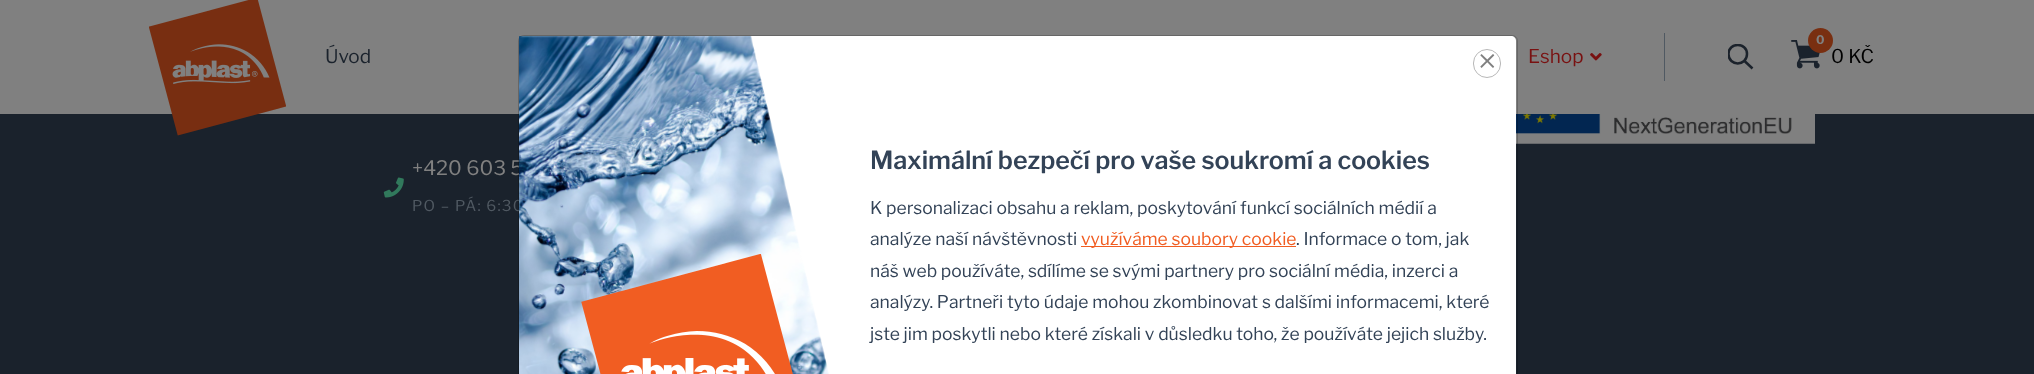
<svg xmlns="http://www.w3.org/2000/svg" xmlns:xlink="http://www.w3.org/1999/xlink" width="2034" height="374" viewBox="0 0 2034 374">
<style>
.cls-1{font:19px Libre Franklin;fill:#1a222c}
.cls-2{font:19px Libre Franklin;fill:#791111}
.cls-3{font:19px Libre Franklin;fill:#000000}
.cls-4{font:bold 12px Libre Franklin;fill:#808080}
.cls-5{font:20px Libre Franklin;fill:#808080}
.cls-6{font:15px Libre Franklin;letter-spacing:1.25px;fill:#505962}
.cls-7{font:300 35px Libre Franklin;fill:#808080}
.cls-8{font:600 25px Libre Franklin;fill:#334357}
.cls-9{font:17.5px Libre Franklin;fill:#334357}
.cls-10{font:17.5px Libre Franklin;fill:#f15d22}
</style>
<defs>
<clipPath id="clip1"><rect x="1728" y="44" width="26" height="26"/></clipPath>
</defs>
<rect width="100%" height="100%" fill="#1a222c"/>
<rect fill="#808080" x="0" y="0" width="2034" height="114"/>
<image xlink:href="image0.png" x="149" y="0" width="137" height="136"/>
<image xlink:href="image1.png" x="1590" y="53" width="12" height="8"/>
<rect fill="#505962" x="1664" y="33" width="1" height="48"/>
<g clip-path="url(#clip1)">
<path fill="none" stroke="#1b222b" stroke-width="2.5" stroke-linejoin="round" d="M1752.5 68.5L1744.5 61M1747 54C1747 66.5 1728.5 66.5 1728.5 54C1728.5 42 1747 42 1747 54Z"/>
</g>
<image xlink:href="image2.png" x="1791" y="40" width="29" height="29"/>
<image xlink:href="image3.png" x="1516" y="114" width="299" height="30"/>
<image xlink:href="image4.png" x="383" y="177" width="21" height="21"/>
<text class="cls-1" x="325" y="63">Úvod</text>
<text class="cls-2" x="1528" y="63">Eshop</text>
<text class="cls-3" x="1831" y="63">0 KČ</text>
<circle fill="#792f11" cx="1820.5" cy="40.5" r="12.5"/>
<text class="cls-4" x="1816" y="44">0</text>
<text class="cls-5" x="412" y="175">+420 603 5</text>
<text class="cls-6" x="412" y="211">PO – PÁ: 6:30</text>
<path fill="#ffffff" d="M524 36H1511C1514 36 1516 38 1516 41V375H519V41C519 38 521 36 524 36Z"/>
<rect fill="none" stroke="#000000" stroke-opacity="0.2" x="518.5" y="35.5" width="999" height="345" rx="5.5"/>
<rect fill="none" stroke="#b8b8b8" x="1473.5" y="49.5" width="27" height="28" rx="13.5"/>
<text class="cls-7" x="1478" y="74">×</text>
<image xlink:href="image5.png" x="519" y="36" width="310" height="338"/>
<image xlink:href="image6.png" x="581" y="254" width="212" height="120"/>
<text class="cls-8" x="870" y="169">Maximální bezpečí pro vaše soukromí a cookies</text>
<text class="cls-9"><tspan x="870" y="214">K personalizaci obsahu a reklam, poskytování funkcí sociálních médií a</tspan><tspan x="870" y="245">analýze naší návštěvnosti</tspan></text>
<rect fill="#f15d22" x="1081" y="246" width="215" height="1"/>
<text class="cls-10" x="1081" y="245">využíváme soubory cookie</text>
<text class="cls-9" x="1296" y="245">. Informace o tom, jak</text>
<text class="cls-9"><tspan x="870" y="277">náš web používáte, sdílíme se svými partnery pro sociální média, inzerci a</tspan><tspan x="870" y="308">analýzy. Partneři tyto údaje mohou zkombinovat s dalšími informacemi, které</tspan><tspan x="870" y="340">jste jim poskytli nebo které získali v důsledku toho, že používáte jejich služby.</tspan></text>
</svg>
